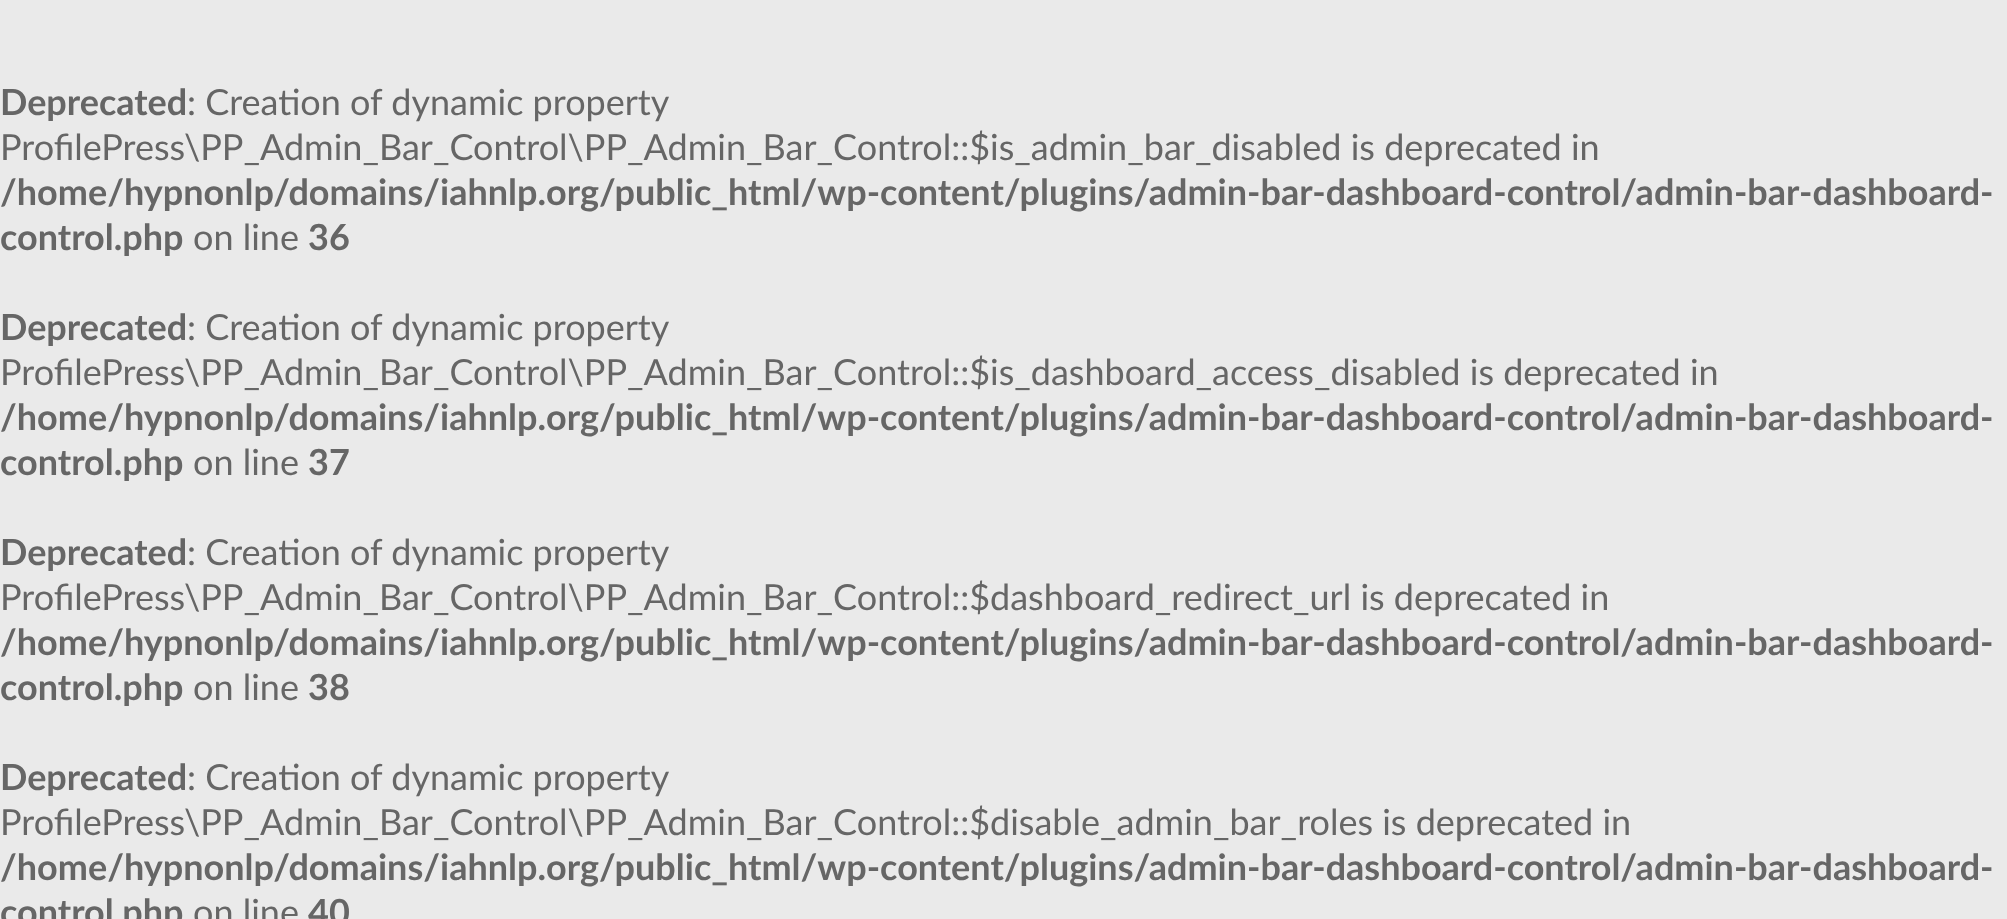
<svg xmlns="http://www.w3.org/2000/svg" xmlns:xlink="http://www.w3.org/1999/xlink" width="2007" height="919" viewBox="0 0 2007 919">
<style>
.cls-1{font:bold 36px Lato;fill:#666666}
.cls-2{font:36px Lato;fill:#666666}
</style>
<rect width="100%" height="100%" fill="#eaeaea"/>
<text class="cls-1" x="0" y="115">Deprecated</text>
<text class="cls-2" x="187" y="115">: Creation of dynamic property</text>
<text class="cls-2" x="0" y="160">ProfilePress\PP_Admin_Bar_Control\PP_Admin_Bar_Control::$is_admin_bar_disabled is deprecated in</text>
<text class="cls-1"><tspan x="0" y="205">/home/hypnonlp/domains/iahnlp.org/public_html/wp-content/plugins/admin-bar-dashboard-control/admin-bar-dashboard-</tspan><tspan x="0" y="250">control.php</tspan></text>
<text class="cls-2" x="193" y="250">on line</text>
<text class="cls-1" x="308" y="250">36</text>
<text class="cls-1" x="0" y="340">Deprecated</text>
<text class="cls-2" x="187" y="340">: Creation of dynamic property</text>
<text class="cls-2" x="0" y="385">ProfilePress\PP_Admin_Bar_Control\PP_Admin_Bar_Control::$is_dashboard_access_disabled is deprecated in</text>
<text class="cls-1"><tspan x="0" y="430">/home/hypnonlp/domains/iahnlp.org/public_html/wp-content/plugins/admin-bar-dashboard-control/admin-bar-dashboard-</tspan><tspan x="0" y="475">control.php</tspan></text>
<text class="cls-2" x="193" y="475">on line</text>
<text class="cls-1" x="308" y="475">37</text>
<text class="cls-1" x="0" y="565">Deprecated</text>
<text class="cls-2" x="187" y="565">: Creation of dynamic property</text>
<text class="cls-2" x="0" y="610">ProfilePress\PP_Admin_Bar_Control\PP_Admin_Bar_Control::$dashboard_redirect_url is deprecated in</text>
<text class="cls-1"><tspan x="0" y="655">/home/hypnonlp/domains/iahnlp.org/public_html/wp-content/plugins/admin-bar-dashboard-control/admin-bar-dashboard-</tspan><tspan x="0" y="700">control.php</tspan></text>
<text class="cls-2" x="193" y="700">on line</text>
<text class="cls-1" x="308" y="700">38</text>
<text class="cls-1" x="0" y="790">Deprecated</text>
<text class="cls-2" x="187" y="790">: Creation of dynamic property</text>
<text class="cls-2" x="0" y="835">ProfilePress\PP_Admin_Bar_Control\PP_Admin_Bar_Control::$disable_admin_bar_roles is deprecated in</text>
<text class="cls-1"><tspan x="0" y="880">/home/hypnonlp/domains/iahnlp.org/public_html/wp-content/plugins/admin-bar-dashboard-control/admin-bar-dashboard-</tspan><tspan x="0" y="925">control.php</tspan></text>
<text class="cls-2" x="193" y="925">on line</text>
<text class="cls-1" x="308" y="925">40</text>
</svg>
